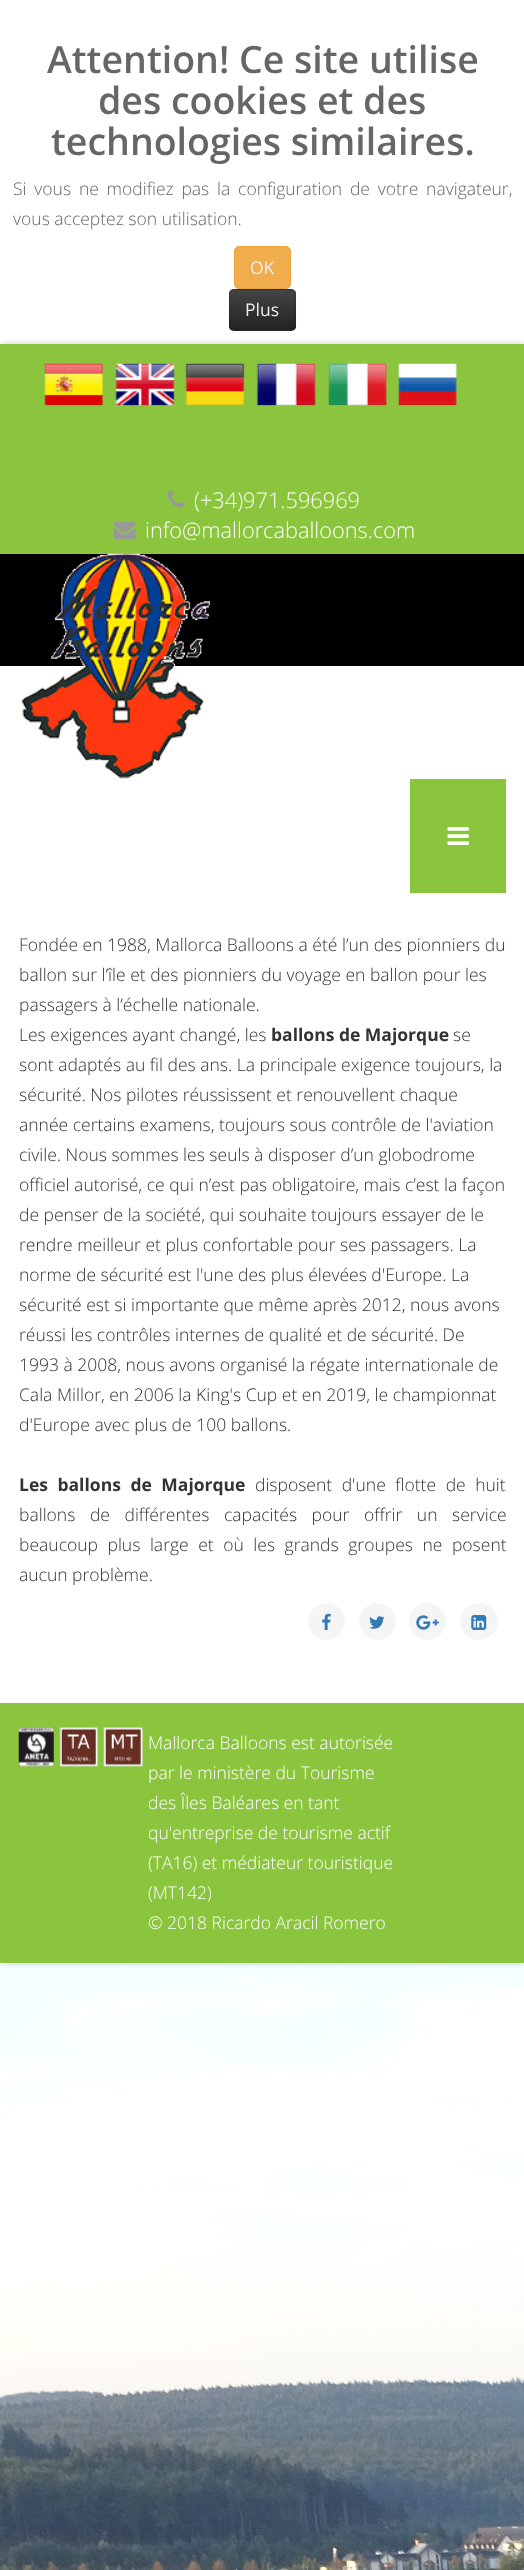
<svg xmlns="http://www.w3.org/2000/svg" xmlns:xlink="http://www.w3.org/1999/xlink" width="524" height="2570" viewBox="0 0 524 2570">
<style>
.cls-1{font:600 37.5px Open Sans;fill:#666666}
.cls-2{font:300 17.5px Open Sans;fill:#666666}
.cls-3{font:17.5px Open Sans;fill:#eeeeee}
.cls-4{font:300 21.75px Open Sans;fill:#ffffff}
.cls-5{font:300 17.5px Open Sans;fill:#333333}
.cls-6{font:bold 17.5px Open Sans;fill:#333333}
.cls-7{font:300 17.5px Open Sans;fill:#ffffff}
</style>
<defs>
<clipPath id="clip1"><rect x="229" y="289" width="67" height="42" rx="5"/></clipPath>
<linearGradient id="g1" gradientUnits="userSpaceOnUse" x1="263" y1="290" x2="263" y2="330"><stop offset="0" stop-color="#444444"/><stop offset="1" stop-color="#222222"/></linearGradient>
</defs>
<rect width="100%" height="100%" fill="#ffffff"/>
<image xlink:href="image0.png" x="0" y="1963" width="524" height="607"/>
<rect fill="#f0ad4e" stroke="#eea236" x="234.5" y="246.5" width="56" height="42" rx="4.5"/>
<rect fill="#363636" x="229" y="289" width="67" height="42" rx="5"/>
<g clip-path="url(#clip1)">
<rect fill="url(#g1)" x="229" y="290" width="67" height="40"/>
</g>
<path fill="none" stroke="#000000" stroke-opacity="0.25" stroke-width="1.2" d="M294.5 329.5C293.5 330 292.5 330.5 291 330.5H234C232.5 330.5 231.5 330 230.5 329.5"/>
<path fill="none" stroke="#000000" stroke-opacity="0.1" stroke-width="1.2" d="M230.5 329.5C230 328.5 229.5 327.5 229.5 326V294C229.5 292.5 230 291.5 230.5 290.5C231.5 290 232.5 289.5 234 289.5H291C292.5 289.5 293.5 290 294.5 290.5C295 291.5 295.5 292.5 295.5 294V326C295.5 327.5 295 328.5 294.5 329.5"/>
<rect fill="#000000" fill-opacity="0.2" filter="blur(3px)" x="0" y="344" width="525" height="1619"/>
<rect fill="#ffffff" x="0" y="666" width="524" height="1037"/>
<rect fill="#8bc53e" x="0" y="344" width="524" height="210"/>
<image xlink:href="image1.png" x="44" y="363" width="59" height="43"/>
<image xlink:href="image2.png" x="115" y="363" width="60" height="43"/>
<image xlink:href="image3.png" x="185" y="363" width="60" height="43"/>
<image xlink:href="image4.png" x="256" y="363" width="60" height="43"/>
<image xlink:href="image5.png" x="328" y="363" width="59" height="43"/>
<image xlink:href="image6.png" x="398" y="363" width="59" height="43"/>
<image xlink:href="image7.png" x="167" y="490" width="18" height="18"/>
<image xlink:href="image8.png" x="113" y="521" width="23" height="19"/>
<rect fill="#000000" x="0" y="554" width="524" height="112"/>
<image xlink:href="image9.png" x="21" y="553" width="189" height="226"/>
<rect fill="#8bc53e" x="410" y="779" width="96" height="114"/>
<image xlink:href="image10.png" x="447" y="827" width="22" height="18"/>
<circle fill="#f5f5f5" cx="326.5" cy="1621.5" r="18.5"/>
<image xlink:href="image11.png" x="322" y="1613" width="9" height="17"/>
<circle fill="#f5f5f5" cx="377.5" cy="1621.5" r="18.5"/>
<image xlink:href="image12.png" x="369" y="1616" width="16" height="13"/>
<circle fill="#f5f5f5" cx="427.5" cy="1621.5" r="18.5"/>
<image xlink:href="image13.png" x="416" y="1615" width="23" height="15"/>
<rect fill="#f5f5f5" x="460" y="1603" width="38" height="37" rx="18.5"/>
<image xlink:href="image14.png" x="471" y="1615" width="16" height="15"/>
<rect fill="#8bc53e" x="0" y="1703" width="524" height="260"/>
<image xlink:href="image15.png" x="18" y="1727" width="36" height="40"/>
<image xlink:href="image16.png" x="59" y="1727" width="39" height="40"/>
<image xlink:href="image17.png" x="103" y="1727" width="40" height="40"/>
<text class="cls-1" x="47" y="73">Attention! Ce site utilise</text>
<text class="cls-1" x="98" y="114">des cookies et des</text>
<text class="cls-1" x="51" y="155">technologies similaires.</text>
<text class="cls-2"><tspan x="13" y="195" word-spacing="3.25">Si vous ne modifiez pas la configuration de votre navigateur,</tspan><tspan x="13" y="225">vous acceptez son utilisation.</tspan></text>
<text class="cls-3" x="250" y="274">OK</text>
<text class="cls-3" x="245" y="316">Plus</text>
<text class="cls-4" x="194" y="508">(+34)971.596969</text>
<text class="cls-4" x="145" y="538">info@mallorcaballoons.com</text>
<text class="cls-5"><tspan x="19" y="951">Fondée en 1988, Mallorca Balloons a été l’un des pionniers du</tspan><tspan x="19" y="981">ballon sur l’île et des pionniers du voyage en ballon pour les</tspan><tspan x="19" y="1011">passagers à l’échelle nationale.</tspan><tspan x="19" y="1041">Les exigences ayant changé, les</tspan></text>
<text class="cls-6" x="271" y="1041">ballons de Majorque</text>
<text class="cls-5" x="453" y="1041">se</text>
<text class="cls-5"><tspan x="19" y="1071">sont adaptés au fil des ans. La principale exigence toujours, la</tspan><tspan x="19" y="1101">sécurité. Nos pilotes réussissent et renouvellent chaque</tspan><tspan x="19" y="1131">année certains examens, toujours sous contrôle de l'aviation</tspan><tspan x="19" y="1161">civile. Nous sommes les seuls à disposer d’un globodrome</tspan><tspan x="19" y="1191">officiel autorisé, ce qui n’est pas obligatoire, mais c’est la façon</tspan><tspan x="19" y="1221">de penser de la société, qui souhaite toujours essayer de le</tspan><tspan x="19" y="1251">rendre meilleur et plus confortable pour ses passagers. La</tspan><tspan x="19" y="1281">norme de sécurité est l'une des plus élevées d'Europe. La</tspan><tspan x="19" y="1311">sécurité est si importante que même après 2012, nous avons</tspan><tspan x="19" y="1341">réussi les contrôles internes de qualité et de sécurité. De</tspan><tspan x="19" y="1371">1993 à 2008, nous avons organisé la régate internationale de</tspan><tspan x="19" y="1401">Cala Millor, en 2006 la King's Cup et en 2019, le championnat</tspan><tspan x="19" y="1431">d'Europe avec plus de 100 ballons.</tspan></text>
<text class="cls-6" x="19" y="1491" word-spacing="5">Les ballons de Majorque</text>
<text class="cls-5" x="255" y="1491" word-spacing="5">disposent d'une flotte de huit</text>
<text class="cls-5"><tspan x="19" y="1521" word-spacing="10">ballons de différentes capacités pour offrir un service</tspan><tspan x="19" y="1551" word-spacing="5">beaucoup plus large et où les grands groupes ne posent</tspan><tspan x="19" y="1581">aucun problème.</tspan></text>
<text class="cls-7"><tspan x="148" y="1749">Mallorca Balloons est autorisée</tspan><tspan x="148" y="1779">par le ministère du Tourisme</tspan><tspan x="148" y="1809">des Îles Baléares en tant</tspan><tspan x="148" y="1839">qu'entreprise de tourisme actif</tspan><tspan x="148" y="1869">(TA16) et médiateur touristique</tspan><tspan x="148" y="1899">(MT142)</tspan><tspan x="148" y="1929">© 2018 Ricardo Aracil Romero</tspan></text>
</svg>
